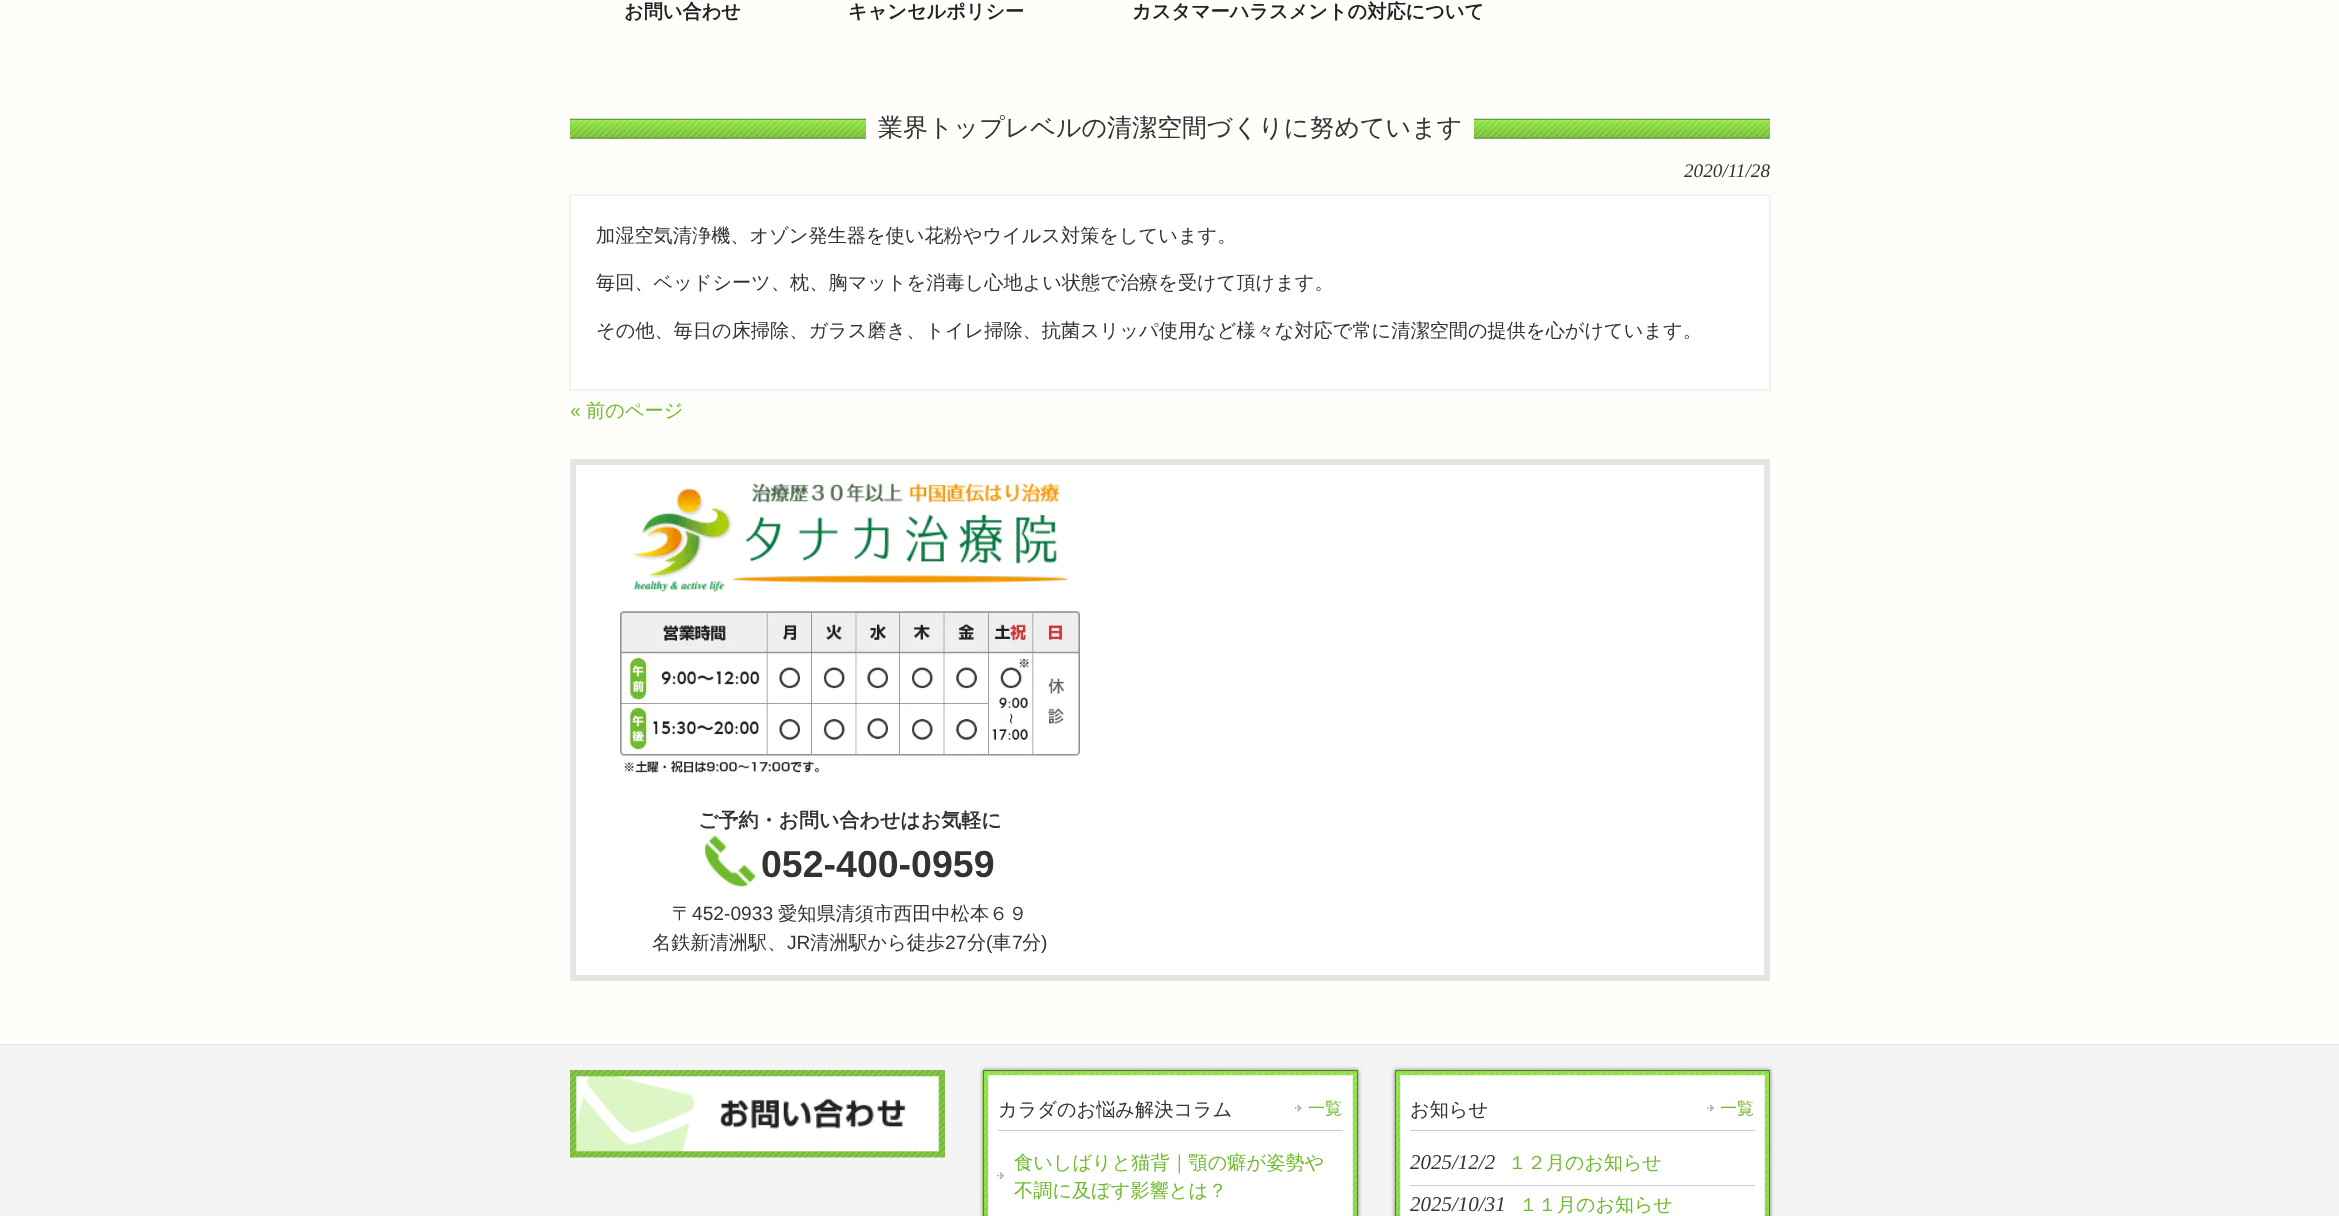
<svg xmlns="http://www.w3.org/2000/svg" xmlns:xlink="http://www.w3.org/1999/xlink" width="2339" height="1216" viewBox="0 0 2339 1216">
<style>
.cls-1{font:bold 19.2px WenQuanYi Zen Hei;fill:#222222}
.cls-2{font:500 25px WenQuanYi Zen Hei;fill:#333333}
.cls-3{font:italic 19.2px Liberation Serif;fill:#333333}
.cls-4{font:500 19.2px WenQuanYi Zen Hei;fill:#333333}
.cls-5{font:19.2px Liberation Sans;fill:#6fba2c}
.cls-6{font:500 19.2px WenQuanYi Zen Hei;fill:#6fba2c}
.cls-7{font:bold 20px WenQuanYi Zen Hei;fill:#333333}
.cls-8{font:bold 37.5px Liberation Sans;fill:#333333}
.cls-9{font:19.2px Liberation Sans;fill:#333333}
.cls-10{font:500 17px WenQuanYi Zen Hei;fill:#6fba2c}
.cls-11{font:italic 21px Liberation Serif;fill:#333333}
.cls-12{font:500 19px WenQuanYi Zen Hei;fill:#6fba2c}
</style>
<rect width="100%" height="100%" fill="#fffefb"/>
<image xlink:href="image0.png" x="570" y="118" width="1200" height="21"/>
<rect fill="#fffefb" x="866" y="118" width="608" height="21"/>
<rect fill="#000000" fill-opacity="0.1" filter="blur(1px)" x="570" y="195" width="1200" height="195"/>
<rect fill="#ffffff" stroke="#eeeeee" x="570.5" y="195.5" width="1199" height="194"/>
<rect fill="#ffffff" stroke="#e5e5e5" stroke-width="6" x="573" y="462" width="1194" height="516"/>
<image xlink:href="image1.png" x="632" y="483" width="436" height="109"/>
<image xlink:href="image2.png" x="620" y="611" width="460" height="162"/>
<image xlink:href="image3.png" x="705" y="836" width="50" height="51"/>
<rect fill="#f4f4f4" x="0" y="1045" width="2339" height="171"/>
<rect fill="#e2e2e2" x="0" y="1044" width="2339" height="1"/>
<image xlink:href="image4.png" x="570" y="1070" width="375" height="88"/>
<rect fill="#000000" fill-opacity="0.5" filter="blur(2px)" x="983" y="1070" width="375" height="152"/>
<image xlink:href="image5.png" x="982" y="1070" width="375" height="146"/>
<rect fill="none" stroke="#508620" x="983.5" y="1070.5" width="374" height="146"/>
<rect fill="#ffffff" stroke="#eeeeee" x="988.5" y="1075.5" width="364" height="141"/>
<rect fill="#cccccc" x="998" y="1130" width="345" height="1"/>
<image xlink:href="image6.png" x="1295" y="1105" width="7" height="7"/>
<image xlink:href="image7.png" x="997" y="1172" width="7" height="7"/>
<rect fill="#000000" fill-opacity="0.5" filter="blur(2px)" x="1395" y="1070" width="375" height="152"/>
<image xlink:href="image8.png" x="1396" y="1071" width="373" height="145"/>
<rect fill="none" stroke="#508620" x="1395.5" y="1070.5" width="374" height="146"/>
<rect fill="#ffffff" stroke="#eeeeee" x="1400.5" y="1075.5" width="364" height="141"/>
<rect fill="#cccccc" x="1410" y="1130" width="345" height="1"/>
<image xlink:href="image9.png" x="1707" y="1105" width="7" height="7"/>
<rect fill="#cccccc" x="1410" y="1185" width="345" height="1"/>
<text class="cls-1" x="624" y="18">お問い合わせ</text>
<text class="cls-1" x="848" y="18">キャンセルポリシー</text>
<text class="cls-1" x="1132" y="18">カスタマーハラスメントの対応について</text>
<text class="cls-2" x="878" y="136">業界トップレベルの清潔空間づくりに努めています</text>
<text class="cls-3" x="1684" y="177">2020/11/28</text>
<text class="cls-4" x="596" y="242">加湿空気清浄機、オゾン発生器を使い花粉やウイルス対策をしています。</text>
<text class="cls-4" x="596" y="289">毎回、ベッドシーツ、枕、胸マットを消毒し心地よい状態で治療を受けて頂けます。</text>
<text class="cls-4" x="596" y="337">その他、毎日の床掃除、ガラス磨き、トイレ掃除、抗菌スリッパ使用など様々な対応で常に清潔空間の提供を心がけています。</text>
<text class="cls-5" x="570" y="417">«</text>
<text class="cls-6" x="586" y="417">前のページ</text>
<text class="cls-7" x="698" y="827">ご予約・お問い合わせはお気軽に</text>
<text class="cls-8" x="761" y="877">052-400-0959</text>
<text class="cls-4" x="672" y="920">〒</text>
<text class="cls-9" x="692" y="920">452-0933</text>
<text class="cls-4" x="778" y="920">愛知県清須市西田中松本６９</text>
<text class="cls-4" x="652" y="949">名鉄新清洲駅、</text>
<text class="cls-9" x="787" y="949">JR</text>
<text class="cls-4" x="810" y="949">清洲駅から徒歩</text>
<text class="cls-9" x="945" y="949">27</text>
<text class="cls-4" x="967" y="949">分</text>
<text class="cls-9" x="986" y="949">(</text>
<text class="cls-4" x="992" y="949">車</text>
<text class="cls-9" x="1012" y="949">7</text>
<text class="cls-4" x="1022" y="949">分</text>
<text class="cls-9" x="1041" y="949">)</text>
<text class="cls-4" x="998" y="1116">カラダのお悩み解決コラム</text>
<text class="cls-10" x="1308" y="1114">一覧</text>
<text class="cls-6"><tspan x="1014" y="1169">食いしばりと猫背｜顎の癖が姿勢や</tspan><tspan x="1014" y="1197">不調に及ぼす影響とは？</tspan></text>
<text class="cls-4" x="1410" y="1116">お知らせ</text>
<text class="cls-10" x="1720" y="1114">一覧</text>
<text class="cls-11" x="1410" y="1169">2025/12/2</text>
<text class="cls-12" x="1508" y="1169">１２月のお知らせ</text>
<text class="cls-11" x="1410" y="1211">2025/10/31</text>
<text class="cls-12" x="1519" y="1211">１１月のお知らせ</text>
</svg>
